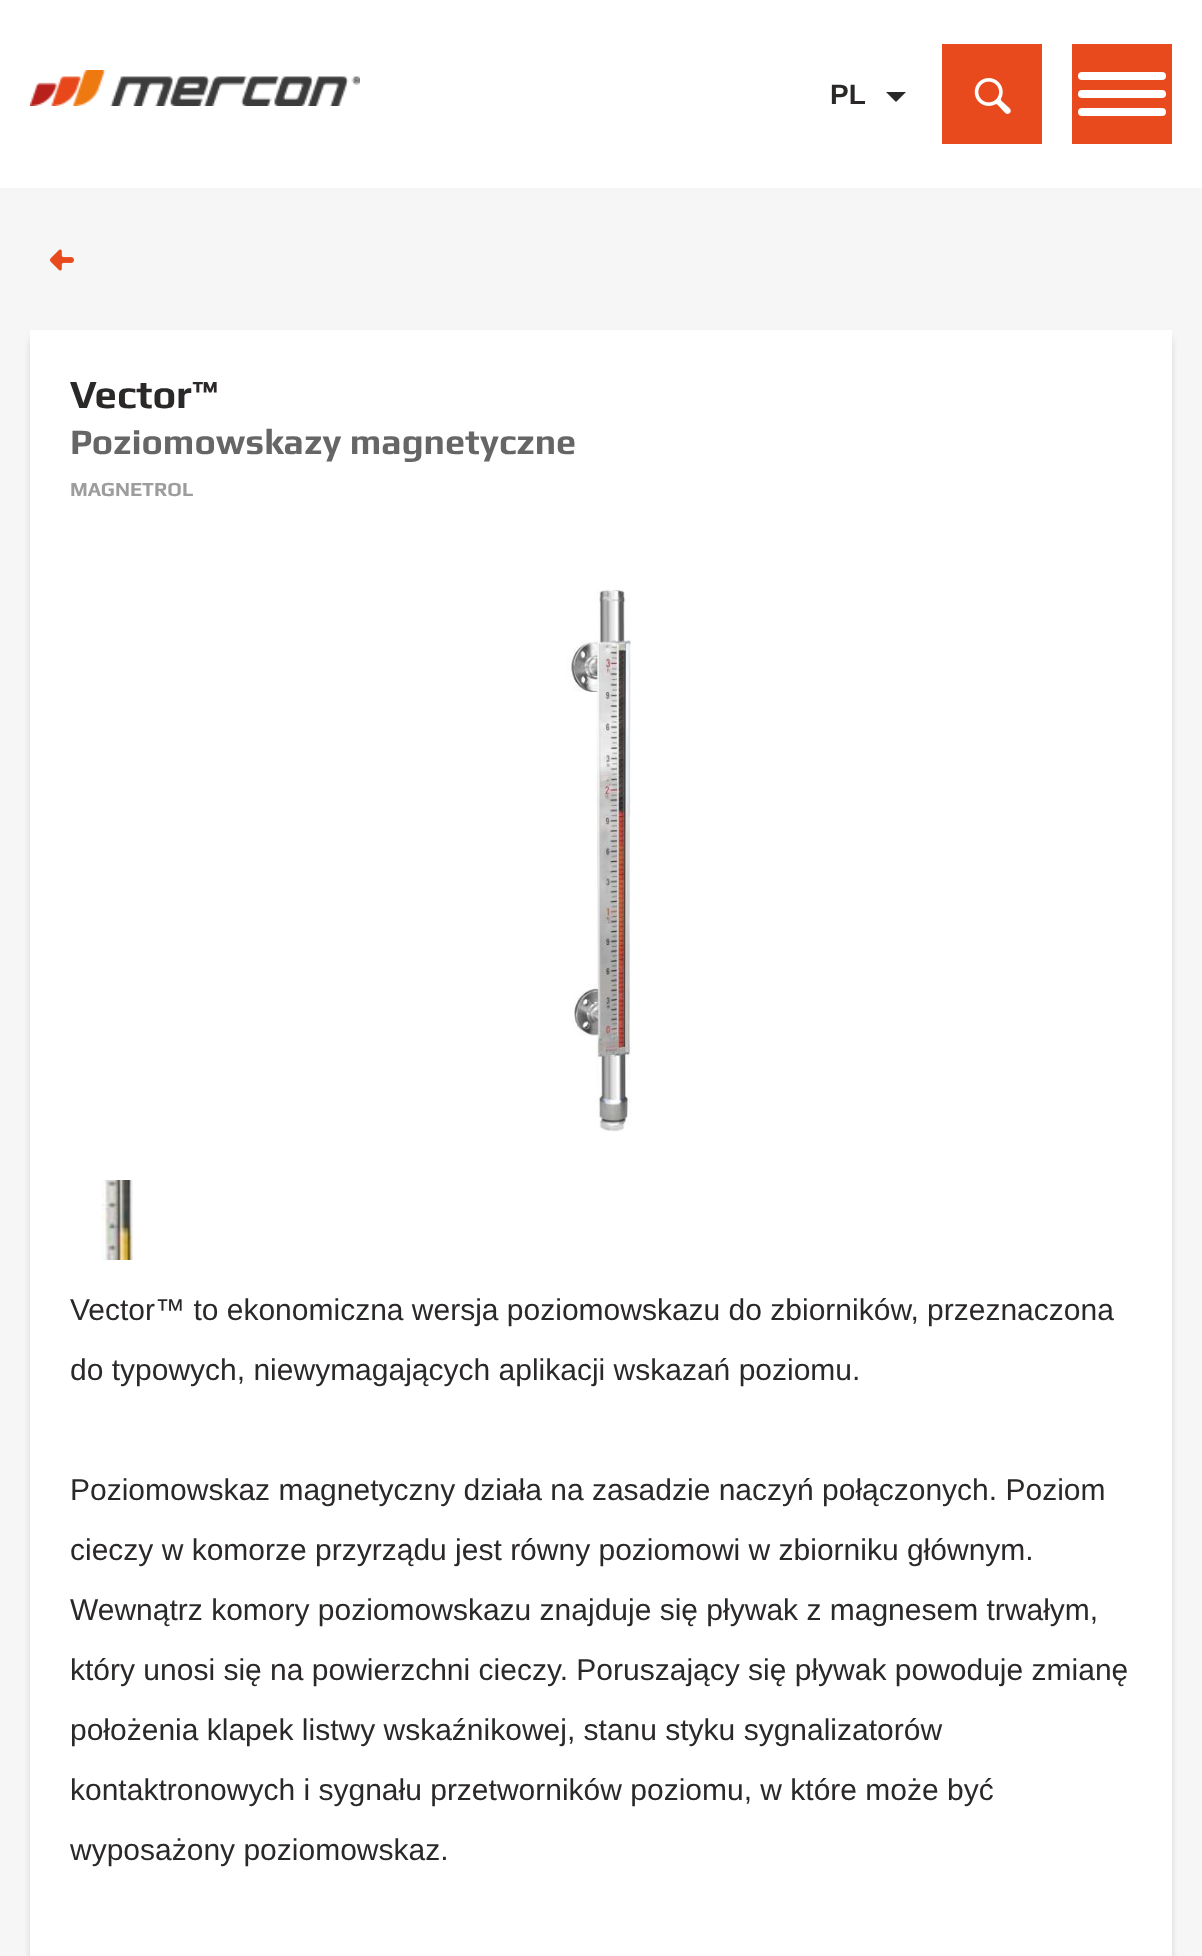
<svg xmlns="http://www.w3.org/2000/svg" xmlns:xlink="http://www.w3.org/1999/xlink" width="1202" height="1956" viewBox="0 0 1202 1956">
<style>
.cls-1{font:bold 28px Liberation Sans;fill:#2b2828}
.cls-2{font:bold 40px Play;fill:#2b2828}
.cls-3{font:bold 36px Play;fill:#666666}
.cls-4{font:bold 20px Play;fill:#9d9d9d}
.cls-5{font:30px Liberation Sans;fill:#2b2828}
</style>
<rect width="100%" height="100%" fill="#f6f6f6"/>
<rect fill="#ffffff" x="0" y="0" width="1202" height="188"/>
<image xlink:href="image0.png" x="30" y="70" width="330" height="36"/>
<path fill="#2b2828" d="M886 92H906L896 102Z"/>
<rect fill="#e8491d" x="942" y="44" width="100" height="100"/>
<image xlink:href="image1.png" x="974" y="78" width="37" height="36"/>
<rect fill="#e8491d" x="1072" y="44" width="100" height="100"/>
<rect fill="#ffffff" x="1078" y="72" width="88" height="8" rx="4"/>
<rect fill="#ffffff" x="1078" y="90" width="88" height="8" rx="4"/>
<rect fill="#ffffff" x="1078" y="108" width="88" height="8" rx="4"/>
<image xlink:href="image2.png" x="50" y="249" width="24" height="22"/>
<rect fill="#999999" filter="blur(5px)" x="34" y="340" width="1134" height="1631"/>
<rect fill="#ffffff" x="30" y="330" width="1142" height="1626"/>
<image xlink:href="image3.png" x="566" y="589" width="66" height="543"/>
<image xlink:href="image4.png" x="101" y="1180" width="33" height="80"/>
<text class="cls-1" x="830" y="104">PL</text>
<text class="cls-2" x="70" y="408">Vector™</text>
<text class="cls-3" x="70" y="454">Poziomowskazy magnetyczne</text>
<text class="cls-4" x="70" y="496">MAGNETROL</text>
<text class="cls-5" x="70" y="1320">Vector™ to ekonomiczna wersja poziomowskazu do zbiorników, przeznaczona</text>
<text class="cls-5" x="70" y="1380">do typowych, niewymagających aplikacji wskazań poziomu.</text>
<text class="cls-5" x="70" y="1500">Poziomowskaz magnetyczny działa na zasadzie naczyń połączonych. Poziom</text>
<text class="cls-5" x="70" y="1560">cieczy w komorze przyrządu jest równy poziomowi w zbiorniku głównym.</text>
<text class="cls-5" x="70" y="1620">Wewnątrz komory poziomowskazu znajduje się pływak z magnesem trwałym,</text>
<text class="cls-5" x="70" y="1680">który unosi się na powierzchni cieczy. Poruszający się pływak powoduje zmianę</text>
<text class="cls-5" x="70" y="1740">położenia klapek listwy wskaźnikowej, stanu styku sygnalizatorów</text>
<text class="cls-5" x="70" y="1800">kontaktronowych i sygnału przetworników poziomu, w które może być</text>
<text class="cls-5" x="70" y="1860">wyposażony poziomowskaz.</text>
</svg>
